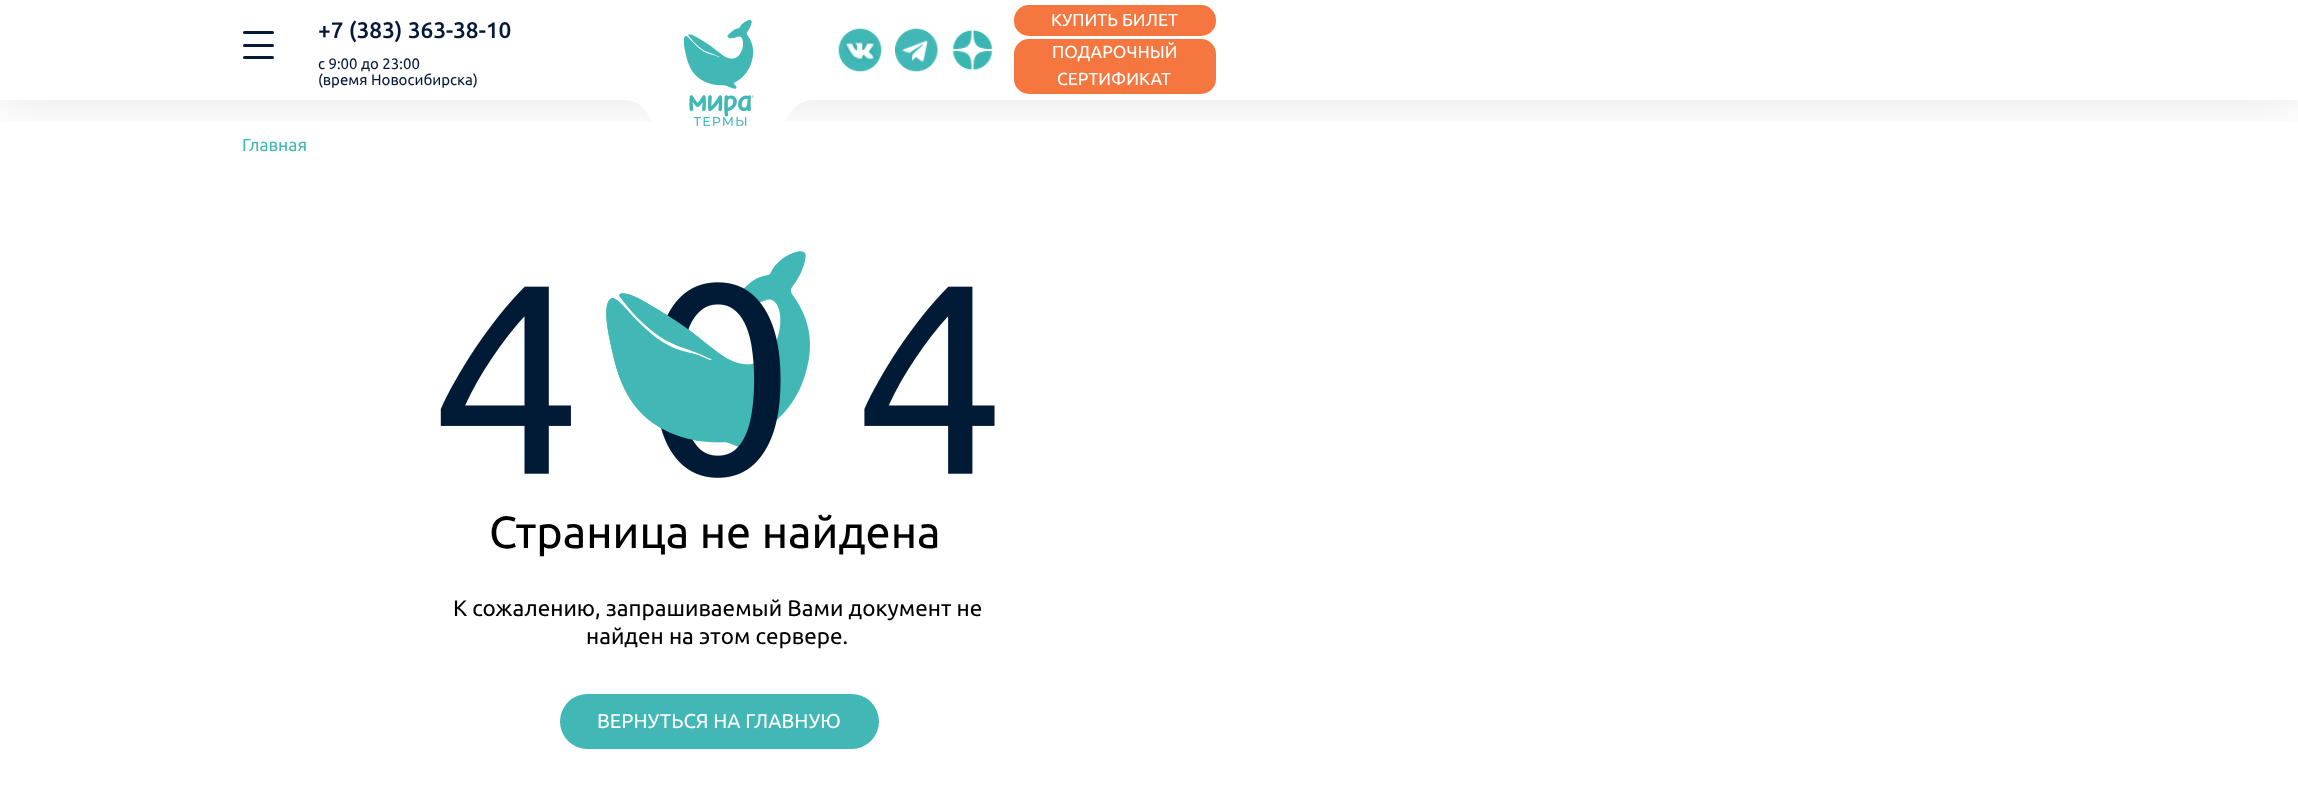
<svg xmlns="http://www.w3.org/2000/svg" xmlns:xlink="http://www.w3.org/1999/xlink" width="2298" height="802" viewBox="0 0 2298 802">
<style>
.cls-1{font:500 22.5px Ubuntu;fill:#041937}
.cls-2{font:17.5px Ubuntu;fill:#ffffff}
.cls-3{font:15px Ubuntu;fill:#041937}
.cls-4{font:17.5px Ubuntu;fill:#41b8b6}
.cls-5{font:45px Ubuntu;fill:#000000}
.cls-6{font:22.5px Ubuntu;fill:#000000}
.cls-7{font:20px Ubuntu;fill:#ffffff}
</style>
<defs>
<clipPath id="clip1"><rect x="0" y="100" width="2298" height="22"/></clipPath>
</defs>
<rect width="100%" height="100%" fill="#ffffff"/>
<g clip-path="url(#clip1)">
<rect fill="#000000" fill-opacity="0.1" filter="blur(25px)" x="0" y="1" width="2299" height="100"/>
</g>
<path fill="#ffffff" d="M836 25V99L812 100C803 101 795 105 790 113L767 153C762 161 754 166 745 166H693C684 166 675 161 671 153L647 113C643 105 635 101 626 100L601 99V25Z"/>
<image xlink:href="image0.png" x="684" y="20" width="70" height="106"/>
<rect fill="#f5763e" x="1014" y="5" width="202" height="31" rx="15"/>
<rect fill="#041937" x="243" y="31" width="31" height="3" rx="1.5"/>
<rect fill="#041937" x="243" y="44" width="31" height="3" rx="1.5"/>
<rect fill="#041937" x="243" y="56" width="31" height="3" rx="1.5"/>
<image xlink:href="image1.png" x="838" y="28" width="44" height="44"/>
<image xlink:href="image2.png" x="895" y="28" width="43" height="44"/>
<image xlink:href="image3.png" x="952" y="29" width="41" height="42"/>
<rect fill="#f5763e" x="1014" y="39" width="202" height="55" rx="15"/>
<image xlink:href="image4.png" x="440" y="251" width="555" height="227"/>
<rect fill="#41b8b6" x="560" y="694" width="319" height="55" rx="27.5"/>
<text class="cls-1" x="318" y="38">+7 (383) 363-38-10</text>
<text class="cls-2" x="1051" y="26">КУПИТЬ БИЛЕТ</text>
<text class="cls-3"><tspan x="318" y="69">с 9:00 до 23:00</tspan><tspan x="318" y="85">(время Новосибирска)</tspan></text>
<text class="cls-2" x="1052" y="58">ПОДАРОЧНЫЙ</text>
<text class="cls-2" x="1057" y="85">СЕРТИФИКАТ</text>
<text class="cls-4" x="242" y="151">Главная</text>
<text class="cls-5" x="489" y="548">Страница не найдена</text>
<text class="cls-6" x="453" y="616">К сожалению, запрашиваемый Вами документ не</text>
<text class="cls-6" x="586" y="644">найден на этом сервере.</text>
<text class="cls-7" x="597" y="728">ВЕРНУТЬСЯ НА ГЛАВНУЮ</text>
</svg>
